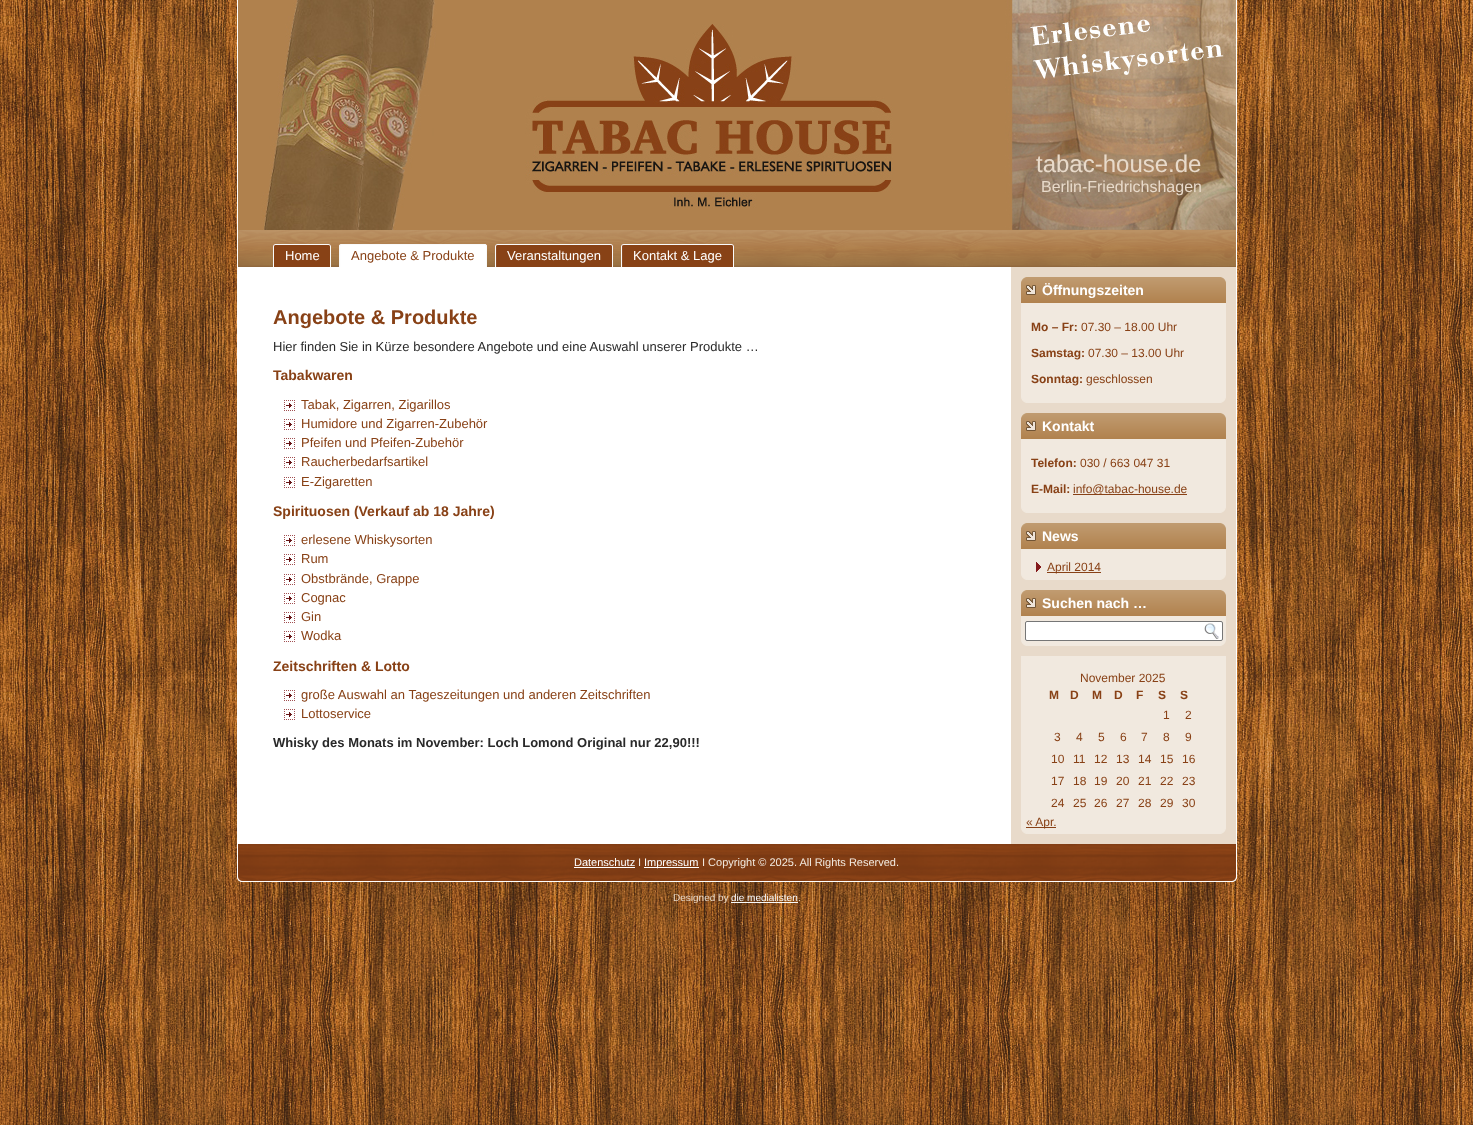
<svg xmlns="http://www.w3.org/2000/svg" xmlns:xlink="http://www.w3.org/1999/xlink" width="1473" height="1125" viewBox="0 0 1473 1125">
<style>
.cls-1{font:24px Liberation Sans;fill:#e8daca}
.cls-2{font:16px Liberation Sans;fill:#e8daca}
.cls-3{font:13px Liberation Sans;fill:#ffffff}
.cls-4{font:13px Liberation Sans;fill:#884116}
.cls-5{font:bold 20px Liberation Sans;fill:#884116}
.cls-6{font:13px Liberation Sans;fill:#292929}
.cls-7{font:bold 14px Liberation Sans;fill:#884116}
.cls-8{font:bold 13px Liberation Sans;fill:#292929}
.cls-9{font:bold 14px Liberation Sans;fill:#ffffff}
.cls-10{font:bold 12px Liberation Sans;fill:#884116}
.cls-11{font:12px Liberation Sans;fill:#884116}
.cls-12{font:11px Liberation Sans;fill:#ffffff}
.cls-13{font:11px Liberation Sans;fill:#f1e9df}
.cls-14{font:10px Liberation Sans;fill:#e8daca}
.cls-15{font:10px Liberation Sans;fill:#f9fafb}
</style>
<rect width="100%" height="100%" fill="#ffffff"/>
<image xlink:href="image0.png" x="0" y="0" width="1473" height="1125"/>
<image xlink:href="image1.png" x="237" y="0" width="994" height="882"/>
<rect fill="#ffffff" x="1236" y="6" width="1" height="870"/>
<image xlink:href="image2.png" x="1231" y="0" width="6" height="882"/>
<rect fill="#ffffff" x="237" y="6" width="774" height="870"/>
<image xlink:href="image3.png" x="238" y="0" width="998" height="230"/>
<image xlink:href="image4.png" x="238" y="230" width="993" height="37"/>
<image xlink:href="image5.png" x="1231" y="230" width="5" height="37"/>
<image xlink:href="image6.png" x="273" y="244" width="55" height="23"/>
<image xlink:href="image7.png" x="328" y="244" width="3" height="23"/>
<image xlink:href="image8.png" x="339" y="244" width="145" height="23"/>
<image xlink:href="image9.png" x="484" y="244" width="3" height="23"/>
<image xlink:href="image10.png" x="495" y="244" width="115" height="23"/>
<image xlink:href="image11.png" x="610" y="244" width="3" height="23"/>
<image xlink:href="image12.png" x="621" y="244" width="110" height="23"/>
<image xlink:href="image13.png" x="731" y="244" width="3" height="23"/>
<image xlink:href="image14.png" x="284" y="400" width="11" height="11"/>
<image xlink:href="image14.png" x="284" y="419" width="11" height="11"/>
<image xlink:href="image14.png" x="284" y="438" width="11" height="11"/>
<image xlink:href="image14.png" x="284" y="457" width="11" height="11"/>
<image xlink:href="image14.png" x="284" y="477" width="11" height="11"/>
<image xlink:href="image14.png" x="284" y="535" width="11" height="11"/>
<image xlink:href="image14.png" x="284" y="554" width="11" height="11"/>
<image xlink:href="image14.png" x="284" y="574" width="11" height="11"/>
<image xlink:href="image14.png" x="284" y="593" width="11" height="11"/>
<image xlink:href="image14.png" x="284" y="612" width="11" height="11"/>
<image xlink:href="image14.png" x="284" y="631" width="11" height="11"/>
<image xlink:href="image14.png" x="284" y="690" width="11" height="11"/>
<image xlink:href="image14.png" x="284" y="709" width="11" height="11"/>
<rect fill="#e8daca" x="1011" y="267" width="225" height="577"/>
<image xlink:href="image15.png" x="1021" y="277" width="190" height="26"/>
<image xlink:href="image16.png" x="1211" y="277" width="15" height="26"/>
<image xlink:href="image17.png" x="1021" y="303" width="199" height="100"/>
<rect fill="#f1e9df" x="1021" y="309" width="205" height="88"/>
<image xlink:href="image18.png" x="1220" y="303" width="6" height="100"/>
<image xlink:href="image15.png" x="1021" y="413" width="190" height="26"/>
<image xlink:href="image16.png" x="1211" y="413" width="15" height="26"/>
<image xlink:href="image19.png" x="1021" y="439" width="199" height="74"/>
<rect fill="#f1e9df" x="1021" y="445" width="205" height="62"/>
<image xlink:href="image20.png" x="1220" y="439" width="6" height="74"/>
<rect fill="#884116" x="1073" y="494" width="114" height="1"/>
<image xlink:href="image15.png" x="1021" y="523" width="190" height="26"/>
<image xlink:href="image16.png" x="1211" y="523" width="15" height="26"/>
<image xlink:href="image21.png" x="1021" y="549" width="199" height="31"/>
<rect fill="#f1e9df" x="1021" y="555" width="205" height="19"/>
<image xlink:href="image22.png" x="1220" y="549" width="6" height="31"/>
<image xlink:href="image23.png" x="1036" y="562" width="5" height="10"/>
<rect fill="#884116" x="1047" y="572" width="54" height="1"/>
<image xlink:href="image15.png" x="1021" y="590" width="190" height="26"/>
<image xlink:href="image16.png" x="1211" y="590" width="15" height="26"/>
<image xlink:href="image24.png" x="1021" y="616" width="199" height="30"/>
<rect fill="#f1e9df" x="1222" y="622" width="4" height="18"/>
<image xlink:href="image25.png" x="1220" y="616" width="6" height="30"/>
<rect fill="#f1e9df" x="1021" y="622" width="5" height="18"/>
<rect fill="#ffffff" stroke="#767676" x="1025.5" y="621.5" width="197" height="19" rx="1.5"/>
<image xlink:href="image26.png" x="1204" y="623" width="15" height="16"/>
<image xlink:href="image27.png" x="1021" y="656" width="199" height="178"/>
<rect fill="#f1e9df" x="1021" y="662" width="205" height="166"/>
<image xlink:href="image28.png" x="1220" y="656" width="6" height="178"/>
<rect fill="#884116" x="1026" y="827" width="30" height="1"/>
<image xlink:href="image29.png" x="238" y="844" width="998" height="32"/>
<rect fill="#ffffff" x="574" y="867" width="61" height="1"/>
<rect fill="#ffffff" x="644" y="867" width="55" height="1"/>
<image xlink:href="image30.png" x="238" y="876" width="993" height="5"/>
<image xlink:href="image31.png" x="1231" y="876" width="5" height="5"/>
<rect fill="#f9fafb" x="731" y="902" width="67" height="1"/>
<text class="cls-1" x="1036" y="172">tabac-house.de</text>
<text class="cls-2" x="1041" y="192">Berlin-Friedrichshagen</text>
<text class="cls-3" x="285" y="260">Home</text>
<text class="cls-4" x="351" y="260">Angebote &amp; Produkte</text>
<text class="cls-3" x="507" y="260">Veranstaltungen</text>
<text class="cls-3" x="633" y="260">Kontakt &amp; Lage</text>
<text class="cls-5" x="273" y="324">Angebote &amp; Produkte</text>
<text class="cls-6" x="273" y="351">Hier finden Sie in Kürze besondere Angebote und eine Auswahl unserer Produkte …</text>
<text class="cls-7" x="273" y="380">Tabakwaren</text>
<text class="cls-4"><tspan x="301" y="409">Tabak, Zigarren, Zigarillos</tspan><tspan x="301" y="428">Humidore und Zigarren-Zubehör</tspan><tspan x="301" y="447">Pfeifen und Pfeifen-Zubehör</tspan><tspan x="301" y="466">Raucherbedarfsartikel</tspan><tspan x="301" y="486">E-Zigaretten</tspan></text>
<text class="cls-7" x="273" y="516">Spirituosen (Verkauf ab 18 Jahre)</text>
<text class="cls-4"><tspan x="301" y="544">erlesene Whiskysorten</tspan><tspan x="301" y="563">Rum</tspan><tspan x="301" y="583">Obstbrände, Grappe</tspan><tspan x="301" y="602">Cognac</tspan><tspan x="301" y="621">Gin</tspan><tspan x="301" y="640">Wodka</tspan></text>
<text class="cls-7" x="273" y="671">Zeitschriften &amp; Lotto</text>
<text class="cls-4"><tspan x="301" y="699">große Auswahl an Tageszeitungen und anderen Zeitschriften</tspan><tspan x="301" y="718">Lottoservice</tspan></text>
<text class="cls-8" x="273" y="747">Whisky des Monats im November: Loch Lomond Original nur 22,90!!!</text>
<text class="cls-9" x="1042" y="295">Öffnungszeiten</text>
<text class="cls-10" x="1031" y="331">Mo – Fr:</text>
<text class="cls-11" x="1081" y="331">07.30 – 18.00 Uhr</text>
<text class="cls-10" x="1031" y="357">Samstag:</text>
<text class="cls-11" x="1088" y="357">07.30 – 13.00 Uhr</text>
<text class="cls-10" x="1031" y="383">Sonntag:</text>
<text class="cls-11" x="1086" y="383">geschlossen</text>
<text class="cls-9" x="1042" y="431">Kontakt</text>
<text class="cls-10" x="1031" y="467">Telefon:</text>
<text class="cls-11" x="1080" y="467">030 / 663 047 31</text>
<text class="cls-10" x="1031" y="493">E-Mail:</text>
<text class="cls-11" x="1073" y="493">info@tabac-house.de</text>
<text class="cls-9" x="1042" y="541">News</text>
<text class="cls-11" x="1047" y="571">April 2014</text>
<text class="cls-9" x="1042" y="608">Suchen nach …</text>
<text class="cls-11" x="1080" y="682">November 2025</text>
<text class="cls-10" x="1049" y="699">M</text>
<text class="cls-10" x="1070" y="699">D</text>
<text class="cls-10" x="1092" y="699">M</text>
<text class="cls-10" x="1114" y="699">D</text>
<text class="cls-10" x="1136" y="699">F</text>
<text class="cls-10" x="1158" y="699">S</text>
<text class="cls-10" x="1180" y="699">S</text>
<text class="cls-11" x="1163" y="719">1</text>
<text class="cls-11" x="1185" y="719">2</text>
<text class="cls-11" x="1054" y="741">3</text>
<text class="cls-11" x="1076" y="741">4</text>
<text class="cls-11" x="1098" y="741">5</text>
<text class="cls-11" x="1120" y="741">6</text>
<text class="cls-11" x="1141" y="741">7</text>
<text class="cls-11" x="1163" y="741">8</text>
<text class="cls-11" x="1185" y="741">9</text>
<text class="cls-11" x="1051" y="763">10</text>
<text class="cls-11" x="1073" y="763">11</text>
<text class="cls-11" x="1094" y="763">12</text>
<text class="cls-11" x="1116" y="763">13</text>
<text class="cls-11" x="1138" y="763">14</text>
<text class="cls-11" x="1160" y="763">15</text>
<text class="cls-11" x="1182" y="763">16</text>
<text class="cls-11" x="1051" y="785">17</text>
<text class="cls-11" x="1073" y="785">18</text>
<text class="cls-11" x="1094" y="785">19</text>
<text class="cls-11" x="1116" y="785">20</text>
<text class="cls-11" x="1138" y="785">21</text>
<text class="cls-11" x="1160" y="785">22</text>
<text class="cls-11" x="1182" y="785">23</text>
<text class="cls-11" x="1051" y="807">24</text>
<text class="cls-11" x="1073" y="807">25</text>
<text class="cls-11" x="1094" y="807">26</text>
<text class="cls-11" x="1116" y="807">27</text>
<text class="cls-11" x="1138" y="807">28</text>
<text class="cls-11" x="1160" y="807">29</text>
<text class="cls-11" x="1182" y="807">30</text>
<text class="cls-11" x="1026" y="826">« Apr.</text>
<text class="cls-12" x="574" y="866">Datenschutz</text>
<text class="cls-13" x="638" y="866">I</text>
<text class="cls-12" x="644" y="866">Impressum</text>
<text class="cls-13" x="702" y="866">I Copyright © 2025. All Rights Reserved.</text>
<text class="cls-14" x="673" y="901">Designed by</text>
<text class="cls-15" x="731" y="901">die medialisten</text>
<text class="cls-14" x="798" y="901">.</text>
</svg>
